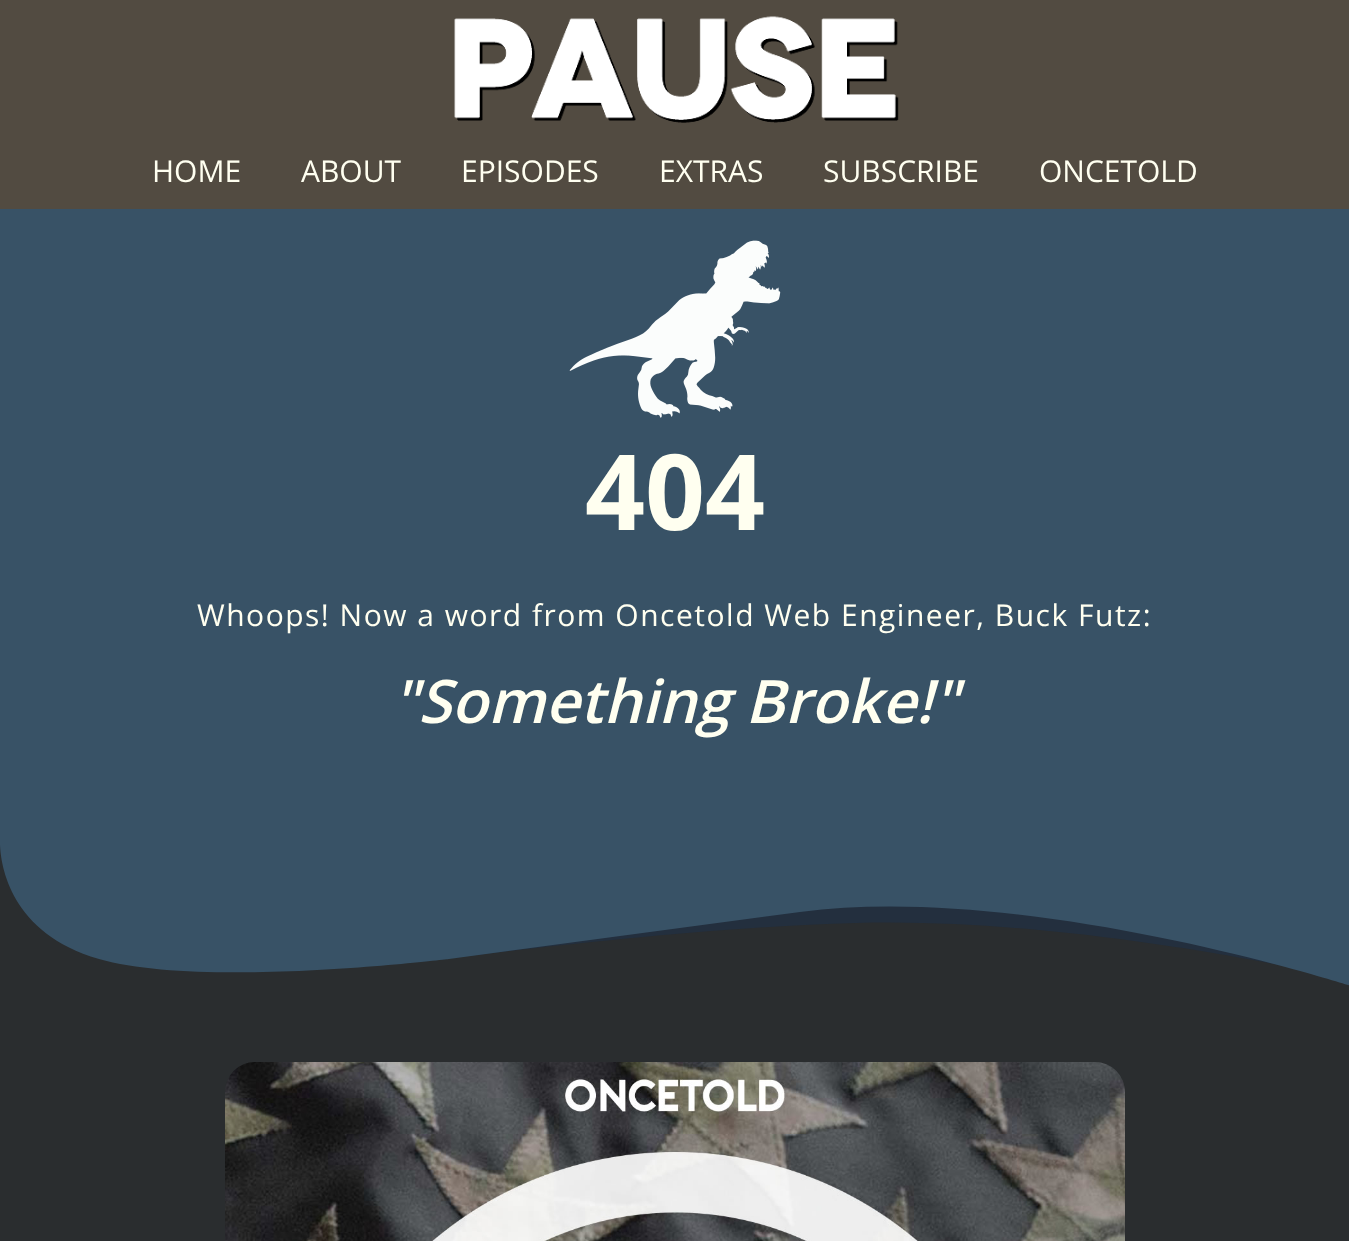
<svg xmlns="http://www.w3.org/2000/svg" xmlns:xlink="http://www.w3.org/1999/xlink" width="1349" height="1241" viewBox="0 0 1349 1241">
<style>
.cls-1{font:30px Open Sans;fill:#fffff0}
.cls-2{font:bold 105px Open Sans;fill:#fffff0}
.cls-3{font:30px Open Sans;letter-spacing:1.5px;fill:#fffff0}
.cls-4{font:italic 600 60px Open Sans;fill:#fffff0}
</style>
<rect width="100%" height="100%" fill="#2a2d2f"/>
<rect fill="#524b41" x="0" y="0" width="1349" height="209"/>
<image xlink:href="image0.png" x="454" y="16" width="445" height="107"/>
<rect fill="#385266" x="0" y="209" width="1349" height="630"/>
<image xlink:href="image1.png" x="569" y="240" width="212" height="178"/>
<path fill="#232f3e" d="M99 870H1303V970C1303 970 1063 917 856 923C688 927 445 959 445 959C445 959 280 973 187 952C93 931 99 870 99 870Z"/>
<path fill="#385266" d="M0 839H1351V986C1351 986 1028 882 800 912L449 959C449 959 203 989 99 959C-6 929 0 839 0 839Z"/>
<image xlink:href="image2.png" x="225" y="1062" width="900" height="179"/>
<text class="cls-1" x="152" y="182">HOME</text>
<text class="cls-1" x="301" y="182">ABOUT</text>
<text class="cls-1" x="461" y="182">EPISODES</text>
<text class="cls-1" x="659" y="182">EXTRAS</text>
<text class="cls-1" x="823" y="182">SUBSCRIBE</text>
<text class="cls-1" x="1039" y="182">ONCETOLD</text>
<text class="cls-2" x="585" y="530">404</text>
<text class="cls-3" x="197" y="626">Whoops! Now a word from Oncetold Web Engineer, Buck Futz:</text>
<text class="cls-4" x="392" y="723">"Something Broke!"</text>
</svg>
